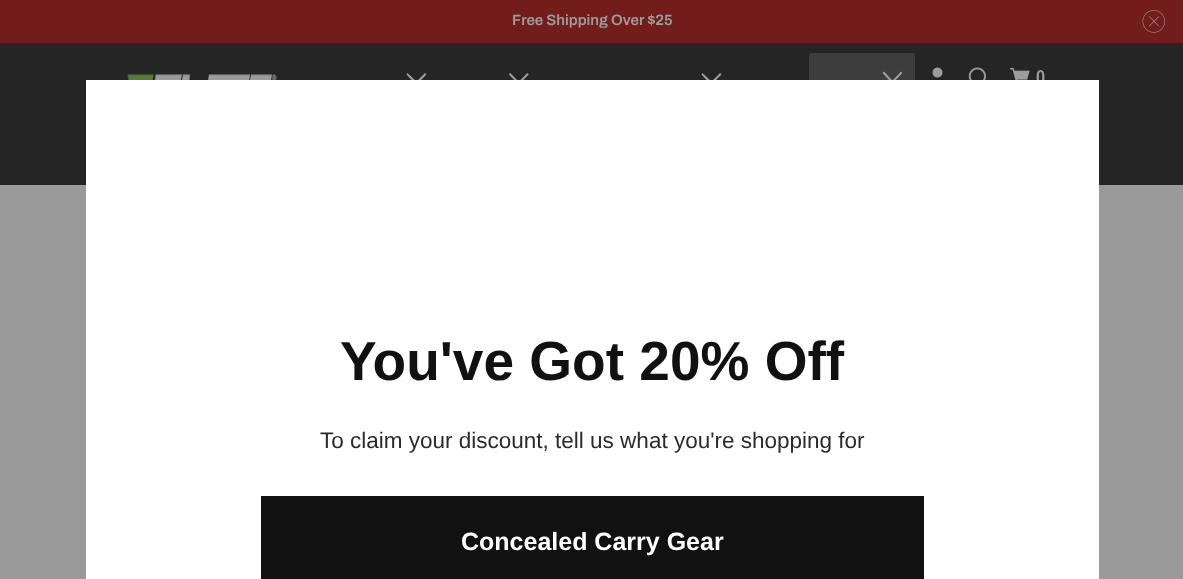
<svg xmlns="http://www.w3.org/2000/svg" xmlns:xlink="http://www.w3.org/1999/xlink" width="1183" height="579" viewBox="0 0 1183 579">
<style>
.cls-1{font:600 15px Archivo;fill:#9c9c9c}
.cls-2{font:600 20px Archivo Narrow;fill:#9c9c9c}
.cls-3{font:bold 55px Liberation Sans;fill:#111111}
.cls-4{font:22.5px Liberation Sans;fill:#2b2b2b}
.cls-5{font:bold 25px Liberation Sans;fill:#ffffff}
</style>
<rect width="100%" height="100%" fill="#9a9a9a"/>
<rect fill="#731c1c" x="0" y="0" width="1183" height="43"/>
<image xlink:href="image0.png" x="1142" y="10" width="23" height="23"/>
<rect fill="#252525" x="0" y="43" width="1183" height="142"/>
<image xlink:href="image1.png" x="127" y="74" width="150" height="6"/>
<path fill="#9c9c9c" d="M411 79.5L406.5 74.5L407.5 73L416.5 81.5L425 73L426.5 74.5L416.5 84.5Z"/>
<image xlink:href="image2.png" x="508" y="73" width="21" height="7"/>
<path fill="#9c9c9c" d="M706 79.5L701.5 74.5L702.5 73L711.5 81.5L720 73L721.5 74.5L711.5 84.5Z"/>
<rect fill="#3d3d3d" x="809" y="53" width="106" height="52" rx="2.5"/>
<path fill="#9c9c9c" d="M887.5 78.5L882.5 73L884 71.5L892.5 80.5L901 71.5L902.5 73L892.5 83.5Z"/>
<image xlink:href="image3.png" x="932" y="67" width="11" height="11"/>
<image xlink:href="image4.png" x="968" y="67" width="18" height="13"/>
<image xlink:href="image5.png" x="1010" y="67" width="20" height="13"/>
<text class="cls-1" x="512" y="25">Free Shipping Over $25</text>
<text class="cls-2" x="1036" y="84">0</text>
<rect fill="#ffffff" x="86" y="80" width="1013" height="499"/>
<text class="cls-3" x="340" y="380">You've Got 20% Off</text>
<text class="cls-4" x="320" y="448">To claim your discount, tell us what you're shopping for</text>
<rect fill="#111111" x="261" y="496" width="663" height="83"/>
<text class="cls-5" x="461" y="550">Concealed Carry Gear</text>
</svg>
